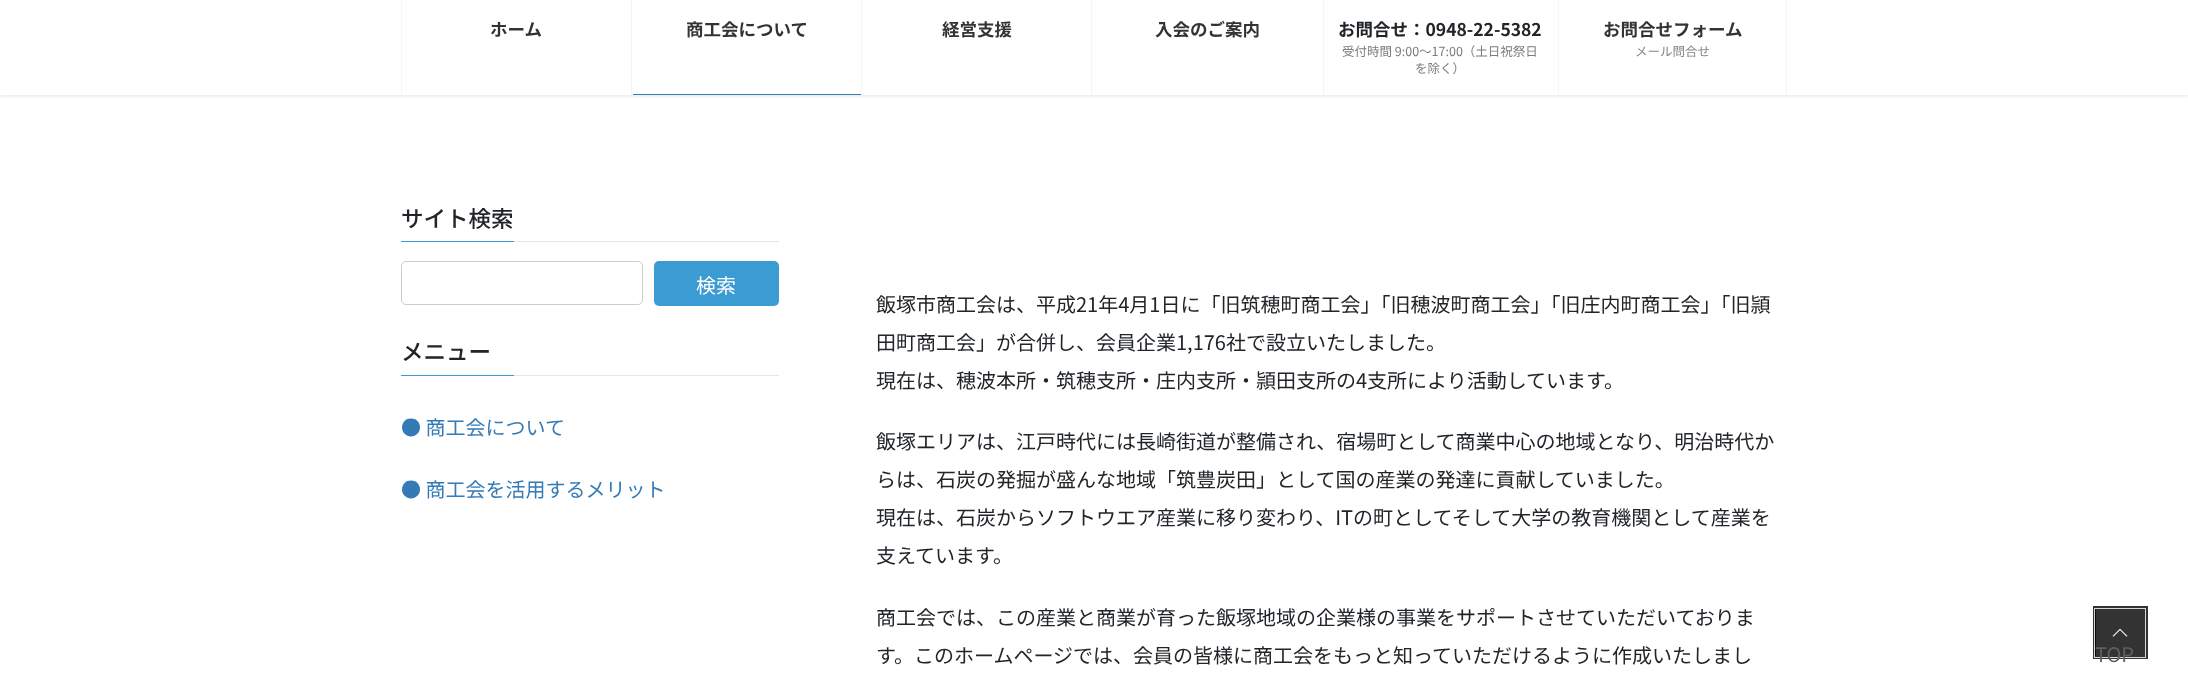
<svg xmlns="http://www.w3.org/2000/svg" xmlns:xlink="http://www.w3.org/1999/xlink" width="2188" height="676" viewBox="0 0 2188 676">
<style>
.cls-1{font:bold 17.5px Noto Sans JP;fill:#333333}
.cls-2{font:bold 17.5px Noto Sans JP;fill:#212529}
.cls-3{font:12.5px Noto Sans JP;fill:#7a7c7f}
.cls-4{font:12.5px Noto Sans JP;fill:#858585}
.cls-5{font:500 22.5px Noto Sans JP;fill:#212529}
.cls-6{font:20px Noto Sans JP;fill:#ffffff}
.cls-7{font:20px Noto Sans JP;fill:#337ab7}
.cls-8{font:20px Noto Sans JP;fill:#212529}
.cls-9{font:20px Noto Sans JP;fill:#5f5f5f}
</style>
<defs>
<clipPath id="clip1"><rect x="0" y="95" width="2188" height="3"/></clipPath>
</defs>
<rect width="100%" height="100%" fill="#ffffff"/>
<g clip-path="url(#clip1)">
<rect fill="#000000" fill-opacity="0.1" filter="blur(2px)" x="0" y="1" width="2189" height="95"/>
</g>
<rect fill="#f5f5f5" x="401" y="0" width="1" height="95"/>
<rect fill="#f5f5f5" x="631" y="0" width="1" height="95"/>
<rect fill="#3283b3" x="633" y="94" width="228" height="1"/>
<rect fill="#f5f5f5" x="861" y="0" width="1" height="95"/>
<rect fill="#f5f5f5" x="1091" y="0" width="1" height="95"/>
<rect fill="#f5f5f5" x="1323" y="0" width="1" height="95"/>
<rect fill="#f5f5f5" x="1786" y="0" width="1" height="95"/>
<rect fill="#f5f5f5" x="1558" y="0" width="1" height="95"/>
<rect fill="#e6e6e6" x="514" y="241" width="265" height="1"/>
<rect fill="#3b9bd3" x="401" y="241" width="113" height="1"/>
<rect fill="none" stroke="#cccccc" x="401.5" y="261.5" width="241" height="43" rx="4.5"/>
<rect fill="#3b9bd3" x="654" y="261" width="125" height="45" rx="5"/>
<rect fill="#e6e6e6" x="514" y="375" width="265" height="1"/>
<rect fill="#3b9bd3" x="401" y="375" width="113" height="1"/>
<rect fill="none" stroke="#333333" stroke-width="3" x="2094.5" y="607.5" width="52" height="50"/>
<rect fill="none" stroke="#d6d6d6" x="2094.5" y="608.5" width="51" height="49"/>
<rect fill="#000000" fill-opacity="0.8" x="2095" y="609" width="50" height="47"/>
<image xlink:href="image0.png" x="2112" y="628" width="16" height="9"/>
<text class="cls-1" x="490" y="36">ホーム</text>
<text class="cls-1" x="686" y="36">商工会について</text>
<text class="cls-1" x="942" y="36">経営支援</text>
<text class="cls-1" x="1155" y="36">入会のご案内</text>
<text class="cls-2" x="1338" y="36">お問合せ：0948-22-5382</text>
<text class="cls-3" x="1342" y="56">受付時間 9:00〜17:00（土日祝祭日</text>
<text class="cls-3" x="1415" y="73">を除く）</text>
<text class="cls-1" x="1603" y="36">お問合せフォーム</text>
<text class="cls-4" x="1635" y="56">メール問合せ</text>
<text class="cls-5" x="401" y="227">サイト検索</text>
<text class="cls-6" x="696" y="293">検索</text>
<text class="cls-5" x="401" y="360">メニュー</text>
<text class="cls-7" x="401" y="435">● 商工会について</text>
<text class="cls-7" x="401" y="497">● 商工会を活用するメリット</text>
<text class="cls-8"><tspan x="876" y="312">飯塚市商工会は、平成21年4月1日に「旧筑穂町商工会」「旧穂波町商工会」「旧庄内町商工会」「旧頴</tspan><tspan x="876" y="350">田町商工会」が合併し、会員企業1,176社で設立いたしました。</tspan><tspan x="876" y="388">現在は、穂波本所・筑穂支所・庄内支所・頴田支所の4支所により活動しています。</tspan></text>
<text class="cls-8"><tspan x="876" y="449">飯塚エリアは、江戸時代には長崎街道が整備され、宿場町として商業中心の地域となり、明治時代か</tspan><tspan x="876" y="487">らは、石炭の発掘が盛んな地域「筑豊炭田」として国の産業の発達に貢献していました。</tspan><tspan x="876" y="525">現在は、石炭からソフトウエア産業に移り変わり、ITの町としてそして大学の教育機関として産業を</tspan><tspan x="876" y="563">支えています。</tspan></text>
<text class="cls-8"><tspan x="876" y="625">商工会では、この産業と商業が育った飯塚地域の企業様の事業をサポートさせていただいておりま</tspan><tspan x="876" y="663">す。このホームページでは、会員の皆様に商工会をもっと知っていただけるように作成いたしまし</tspan></text>
<text class="cls-9" x="2095" y="662">TOP</text>
</svg>
